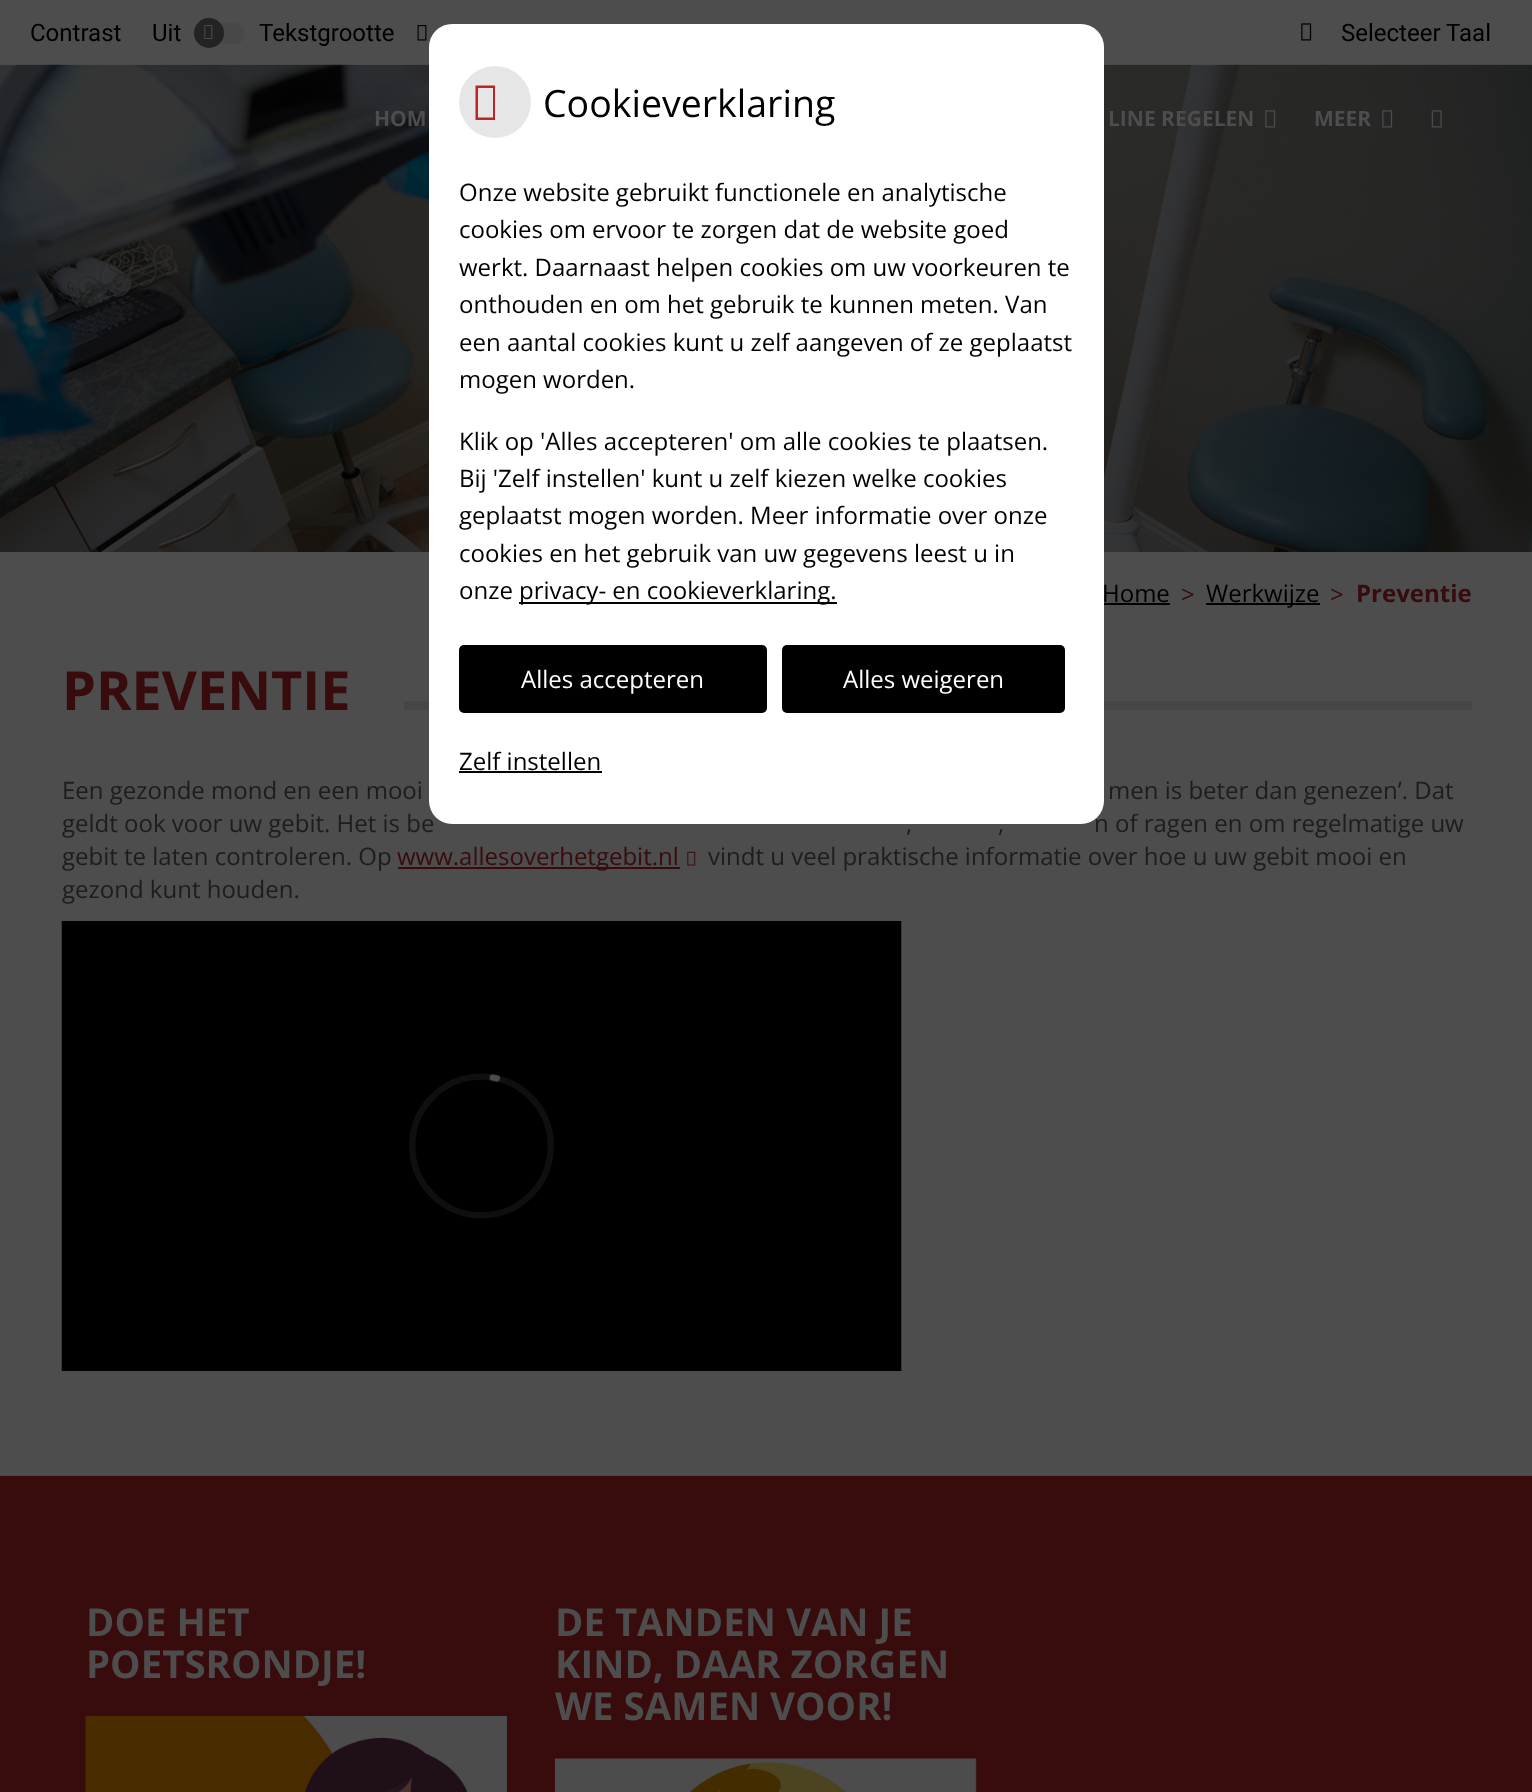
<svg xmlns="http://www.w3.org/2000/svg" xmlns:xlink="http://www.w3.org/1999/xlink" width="1532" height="1792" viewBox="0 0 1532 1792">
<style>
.cls-1{font:24px Roboto;fill:#000000}
.cls-2{font:bold 21px Open Sans;fill:#4d4d4d}
.cls-3{font:24px Open Sans;fill:#000000}
.cls-4{font:24px Open Sans;fill:#380b0c}
.cls-5{font:bold 24px Open Sans;fill:#380b0c}
.cls-6{font:bold 54px Open Sans;fill:#380b0c}
.cls-7{font:24px Open Sans;fill:#1d1d1d}
.cls-8{font:24px Open Sans;fill:#ffffff}
.cls-9{font:37.5px Open Sans;fill:#000000}
.cls-10{font:bold 38.4px Open Sans;fill:#4d4d4d}
</style>
<rect width="100%" height="100%" fill="#4d4d4d"/>
<rect fill="#494848" x="194" y="23" width="51" height="21" rx="10.5"/>
<circle fill="#232323" cx="209" cy="33" r="15"/>
<image xlink:href="image0.png" x="204" y="25" width="9" height="14"/>
<image xlink:href="image1.png" x="417" y="25" width="10" height="16"/>
<image xlink:href="image2.png" x="1301" y="23" width="11" height="18"/>
<image xlink:href="image3.png" x="0" y="64" width="1532" height="488"/>
<image xlink:href="image4.png" x="1265" y="110" width="11" height="18"/>
<image xlink:href="image5.png" x="1382" y="110" width="11" height="18"/>
<image xlink:href="image6.png" x="1431" y="110" width="11" height="18"/>
<rect fill="#000000" x="1103" y="603" width="67" height="2"/>
<rect fill="#000000" x="1206" y="603" width="114" height="2"/>
<rect fill="#454647" x="0" y="1475" width="1532" height="1"/>
<rect fill="#454647" x="404" y="701" width="1068" height="9"/>
<rect fill="#380b0c" x="398" y="867" width="282" height="2"/>
<image xlink:href="image7.png" x="687" y="851" width="9" height="15"/>
<image xlink:href="image8.png" x="61" y="921" width="841" height="450"/>
<rect fill="#380b0c" x="0" y="1476" width="1532" height="316"/>
<image xlink:href="image9.png" x="85" y="1716" width="422" height="76"/>
<image xlink:href="image10.png" x="555" y="1758" width="422" height="34"/>
<text class="cls-1" x="30" y="41">Contrast</text>
<text class="cls-1" x="152" y="41">Uit</text>
<text class="cls-1" x="259" y="41">Tekstgrootte</text>
<text class="cls-1" x="1341" y="41">Selecteer Taal</text>
<text class="cls-2" x="374" y="126">HOM</text>
<text class="cls-2" x="1108" y="126">LINE REGELEN</text>
<text class="cls-2" x="1314" y="126">MEER</text>
<text class="cls-3" x="1102" y="602">Home</text>
<text class="cls-4" x="1181" y="603">&gt;</text>
<text class="cls-3" x="1206" y="602">Werkwijze</text>
<text class="cls-4" x="1330" y="603">&gt;</text>
<text class="cls-5" x="1356" y="602">Preventie</text>
<text class="cls-6" x="62" y="710">PREVENTIE</text>
<text class="cls-7" x="62" y="799">Een gezonde mond en een mooi</text>
<text class="cls-7" x="1108" y="799">men is beter dan genezen’. Dat</text>
<text class="cls-7" x="62" y="832">geldt ook voor uw gebit. Het is be</text>
<text class="cls-7" x="906" y="832">,</text>
<text class="cls-7" x="998" y="832">,</text>
<text class="cls-7" x="1094" y="832">n of ragen en om regelmatige uw</text>
<rect fill="#ffffff" x="429" y="24" width="675" height="800" rx="23"/>
<text class="cls-3" x="459" y="770">Zelf instellen</text>
<rect fill="#000000" x="459" y="771" width="143" height="2"/>
<rect fill="#000000" x="782" y="645" width="283" height="68" rx="5"/>
<text class="cls-8" x="843" y="688">Alles weigeren</text>
<rect fill="#000000" x="459" y="645" width="308" height="68" rx="5"/>
<text class="cls-8" x="521" y="688">Alles accepteren</text>
<rect fill="#000000" x="519" y="602" width="318" height="2"/>
<text class="cls-3" x="519" y="599">privacy- en cookieverklaring.</text>
<text class="cls-3" x="459" y="599">onze</text>
<text class="cls-3" x="459" y="562">cookies en het gebruik van uw gegevens leest u in</text>
<text class="cls-3" x="459" y="524">geplaatst mogen worden. Meer informatie over onze</text>
<text class="cls-3" x="459" y="487">Bij 'Zelf instellen' kunt u zelf kiezen welke cookies</text>
<text class="cls-3" x="459" y="450">Klik op 'Alles accepteren' om alle cookies te plaatsen.</text>
<text class="cls-3" x="459" y="388">mogen worden.</text>
<text class="cls-3" x="459" y="351">een aantal cookies kunt u zelf aangeven of ze geplaatst</text>
<text class="cls-3" x="459" y="313">onthouden en om het gebruik te kunnen meten. Van</text>
<text class="cls-3" x="459" y="276">werkt. Daarnaast helpen cookies om uw voorkeuren te</text>
<text class="cls-3" x="459" y="238">cookies om ervoor te zorgen dat de website goed</text>
<text class="cls-3" x="459" y="201">Onze website gebruikt functionele en analytische</text>
<text class="cls-9" x="543" y="117">Cookieverklaring</text>
<circle fill="#e6e6e6" cx="495" cy="102" r="36"/>
<path fill="#bb2528" d="M475.5 120V85.5H495V120ZM478 117.5H493V88H478Z"/>
<text class="cls-7" x="62" y="865">gebit te laten controleren. Op</text>
<text class="cls-4" x="397" y="865">www.allesoverhetgebit.nl</text>
<text class="cls-7" x="708" y="865">vindt u veel praktische informatie over hoe u uw gebit mooi en</text>
<text class="cls-7" x="62" y="898">gezond kunt houden.</text>
<text class="cls-10"><tspan x="86" y="1636">DOE HET</tspan><tspan x="86" y="1678">POETSRONDJE!</tspan></text>
<text class="cls-10"><tspan x="555" y="1636">DE TANDEN VAN JE</tspan><tspan x="555" y="1678">KIND, DAAR ZORGEN</tspan><tspan x="555" y="1720">WE SAMEN VOOR!</tspan></text>
</svg>
